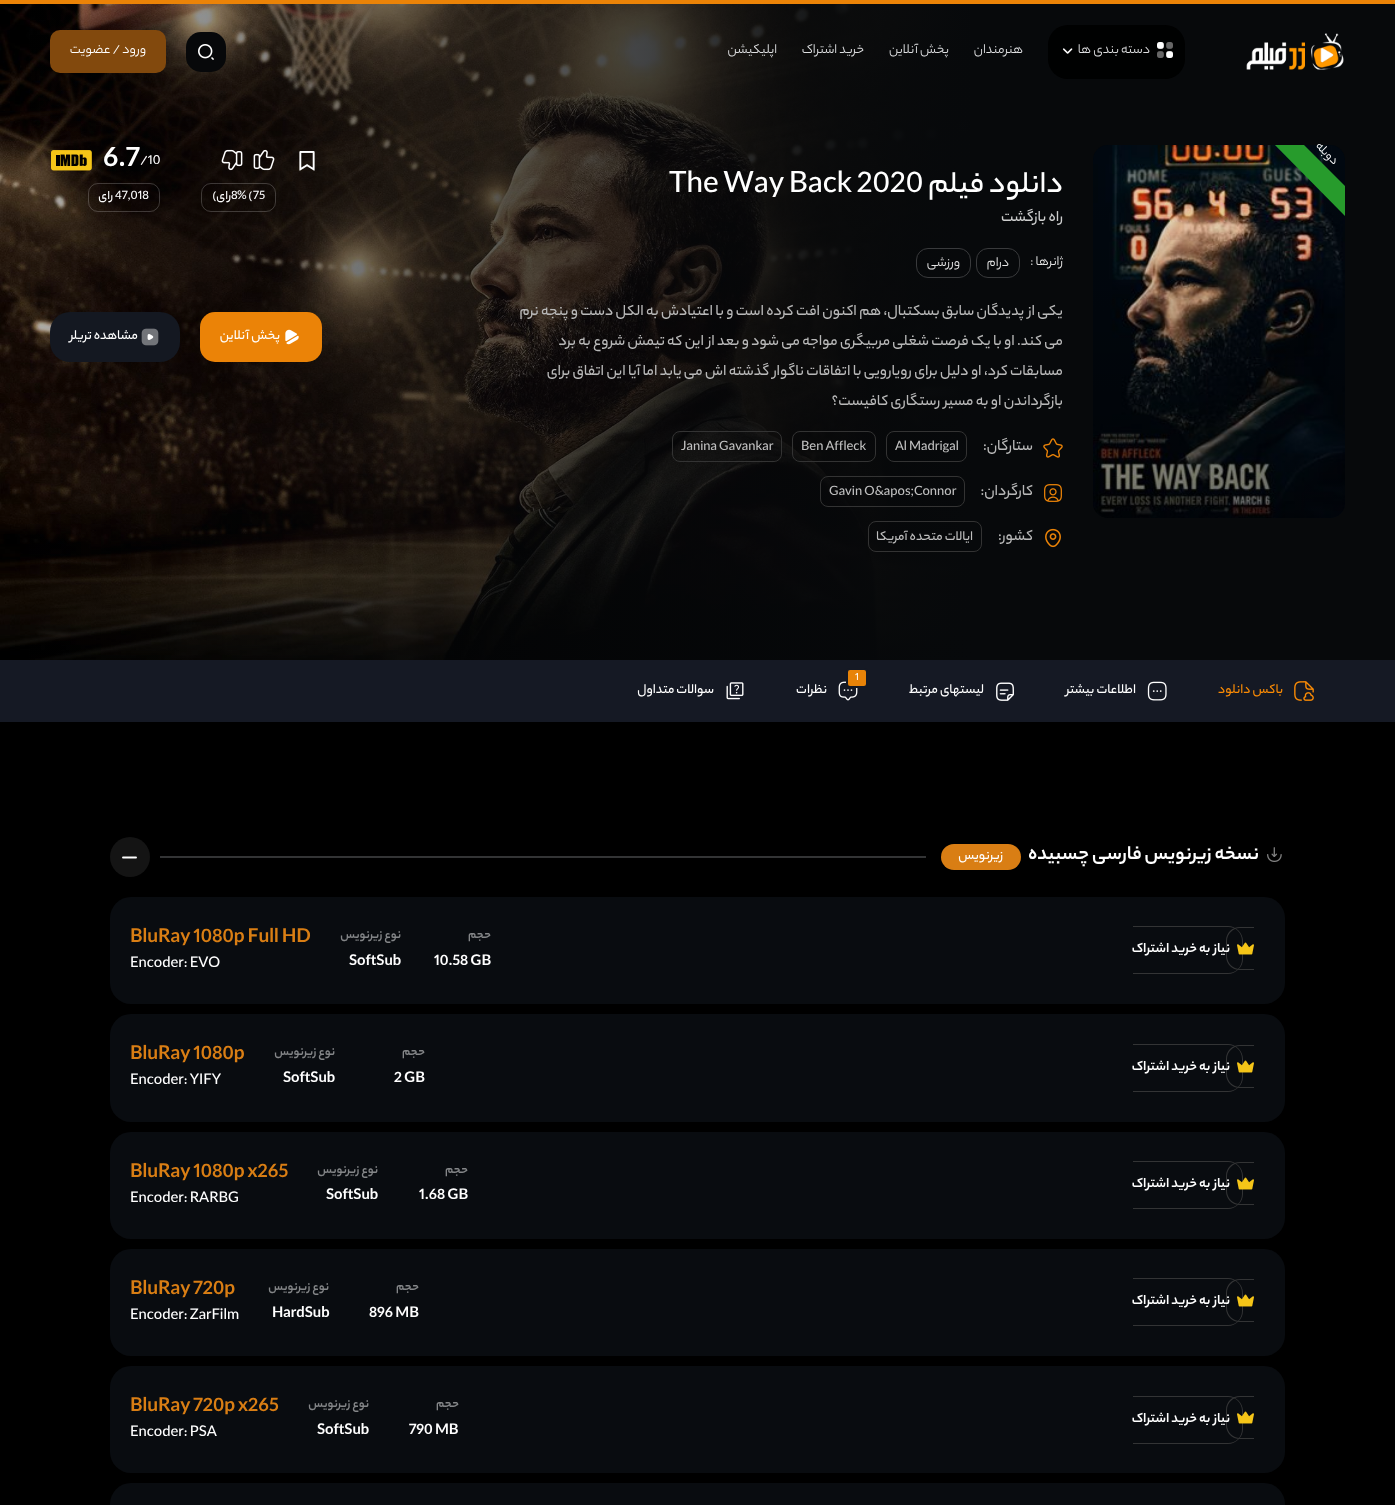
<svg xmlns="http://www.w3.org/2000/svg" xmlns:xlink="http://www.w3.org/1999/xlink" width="1395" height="1505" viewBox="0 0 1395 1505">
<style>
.cls-1{font:14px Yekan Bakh;direction:rtl;fill:#dedfe1}
.cls-2{font:14px Yekan Bakh;direction:rtl;fill:#ffffff}
.cls-3{font:13px Yekan Bakh;direction:rtl;fill:#ffffff}
.cls-4{font:500 32px Yekan Bakh;direction:rtl;fill:#ffffff}
.cls-5{font:500 32px Yekan Bakh;fill:#ffffff}
.cls-6{font:500 16px Yekan Bakh;direction:rtl;fill:#cdcece}
.cls-7{font:14px Yekan Bakh;direction:rtl;fill:#e5e5e5}
.cls-8{font:500 16px Yekan Bakh;direction:rtl;fill:#b8b8b8}
.cls-9{font:500 14px Yekan Bakh;fill:#bfbfbf}
.cls-10{font:500 14px Yekan Bakh;direction:rtl;fill:#bfbfbf}
.cls-11{font:500 14px Yekan Bakh;fill:#ffffff}
.cls-12{font:bold 30px Yekan Bakh;fill:#ffffff}
.cls-13{font:500 13px Yekan Bakh;fill:#ffffff}
.cls-14{font:500 13px Yekan Bakh;direction:rtl;fill:#ffffff}
.cls-15{font:500 14px Yekan Bakh;direction:rtl;fill:#ffffff}
.cls-16{font:500 14px Yekan Bakh;direction:rtl;fill:#fb8b04}
.cls-17{font:500 11px Yekan Bakh;fill:#ffffff}
.cls-18{font:bold 20.75px Yekan Bakh;direction:rtl;fill:#ffffff}
.cls-19{font:bold 14.5px Yekan Bakh;direction:rtl;fill:#ffffff}
.cls-20{font:bold 13px Yekan Bakh;direction:rtl;fill:#848688}
.cls-21{font:bold 16px Yekan Bakh;fill:#ffffff}
.cls-22{font:bold 20.75px Yekan Bakh;fill:#d97e14}
.cls-23{font:500 16px Yekan Bakh;fill:#ffffff}
</style>
<defs>
<linearGradient id="g1" gradientUnits="userSpaceOnUse" x1="1395" y1="330" x2="0" y2="330"><stop offset="0.3" stop-color="#07090b"/><stop offset="1" stop-color="#07090b" stop-opacity="0"/></linearGradient>
<linearGradient id="g2" gradientUnits="userSpaceOnUse" x1="1219" y1="145" x2="1219" y2="518"><stop offset="0" stop-color="#000000" stop-opacity="0"/><stop offset="1" stop-color="#000000" stop-opacity="0.56"/></linearGradient>
<clipPath id="clip1"><rect x="1093" y="145" width="252" height="373"/></clipPath>
</defs>
<rect width="100%" height="100%" fill="#000000"/>
<rect fill="#eb8307" x="0" y="0" width="1395" height="4"/>
<image xlink:href="image4.png" x="0" y="4" width="971" height="656"/>
<rect fill="url(#g1)" x="29" y="4" width="1366" height="656"/>
<image xlink:href="image0.png" x="1246" y="33" width="98" height="37"/>
<rect fill="#000101" x="1048" y="25" width="137" height="54" rx="20"/>
<image xlink:href="image1.png" x="1157" y="42" width="16" height="16"/>
<image xlink:href="image2.png" x="1062" y="48" width="11" height="6"/>
<rect fill="#07080a" x="186" y="32" width="40" height="40" rx="15"/>
<image xlink:href="image3.png" x="198" y="44" width="16" height="16"/>
<rect fill="#82490d" x="50" y="30" width="116" height="43" rx="10"/>
<image xlink:href="image5.png" x="1093" y="145" width="252" height="373"/>
<rect fill="url(#g2)" x="1093" y="145" width="252" height="373" rx="15"/>
<g clip-path="url(#clip1)">
<path fill="#279b2c" d="M1284 125L1366 207L1351 222L1270 140Z"/>
</g>
<rect fill="none" stroke="#393a3c" x="976.5" y="248.5" width="43" height="29" rx="11.5"/>
<rect fill="none" stroke="#393a3c" x="916.5" y="248.5" width="54" height="29" rx="11.5"/>
<image xlink:href="image6.png" x="1043" y="438" width="20" height="20"/>
<rect fill="none" stroke="#333333" x="886.5" y="431.5" width="80" height="30" rx="7.5"/>
<rect fill="none" stroke="#333333" x="792.5" y="431.5" width="83" height="30" rx="7.5"/>
<rect fill="none" stroke="#333333" x="672.5" y="431.5" width="109" height="30" rx="7.5"/>
<image xlink:href="image7.png" x="1044" y="484" width="18" height="18"/>
<rect fill="none" stroke="#333333" x="820.5" y="476.5" width="144" height="30" rx="7.5"/>
<image xlink:href="image8.png" x="1045" y="528" width="16" height="20"/>
<rect fill="none" stroke="#333333" x="868.5" y="521.5" width="113" height="30" rx="7.5"/>
<image xlink:href="image9.png" x="299" y="151" width="16" height="20"/>
<image xlink:href="image10.png" x="51" y="150" width="41" height="21"/>
<rect fill="none" stroke="#ffffff" stroke-opacity="0.2" x="88.5" y="183.5" width="71" height="28" rx="9.5"/>
<image xlink:href="image11.png" x="253" y="149" width="22" height="22"/>
<image xlink:href="image12.png" x="221" y="149" width="22" height="22"/>
<rect fill="none" stroke="#ffffff" stroke-opacity="0.2" x="201.5" y="183.5" width="74" height="28" rx="9.5"/>
<rect fill="#eb8307" x="200" y="312" width="122" height="50" rx="15"/>
<image xlink:href="image13.png" x="285" y="329" width="14" height="16"/>
<rect fill="#141821" x="50" y="312" width="130" height="50" rx="20"/>
<image xlink:href="image14.png" x="141" y="328" width="18" height="18"/>
<rect fill="#151924" x="0" y="660" width="1395" height="62"/>
<image xlink:href="image15.png" x="1294" y="681" width="20" height="20"/>
<image xlink:href="image16.png" x="1147" y="681" width="20" height="20"/>
<image xlink:href="image17.png" x="996" y="682" width="18" height="19"/>
<image xlink:href="image18.png" x="838" y="681" width="20" height="20"/>
<rect fill="#e88308" stroke="#151924" stroke-width="2" x="847" y="669" width="20" height="18" rx="3"/>
<image xlink:href="image19.png" x="726" y="682" width="18" height="18"/>
<image xlink:href="image20.png" x="1267" y="847" width="15" height="15"/>
<rect fill="#d97e14" x="941" y="844" width="80" height="26" rx="13"/>
<rect fill="#333435" x="160" y="856" width="766" height="2"/>
<circle fill="#141414" cx="130" cy="857" r="20"/>
<path fill="none" stroke="#ffffff" stroke-width="1.9" stroke-linecap="round" stroke-linejoin="round" d="M123 857.5H136"/>
<rect fill="#090c10" x="110" y="897" width="1175" height="107" rx="21"/>
<path fill="#333435" fill-rule="evenodd" d="M1240 927H1254V970H1240C1232 970 1226 964 1226 956V941C1226 933 1232 927 1240 927ZM1240 928H1254V969H1240C1233 969 1227 963 1227 956V941C1227 934 1233 928 1240 928Z"/>
<path fill="#333435" fill-rule="evenodd" d="M1133 926H1228C1236 926 1243 933 1243 941V959C1243 967 1236 974 1228 974H1133ZM1133 927H1228C1236 927 1242 933 1242 941V959C1242 967 1236 973 1228 973H1133Z"/>
<image xlink:href="image21.png" x="1237" y="942" width="17" height="13"/>
<rect fill="#090c10" x="110" y="1014" width="1175" height="108" rx="21"/>
<path fill="#333435" fill-rule="evenodd" d="M1240 1045H1254V1088H1240C1232 1088 1226 1082 1226 1074V1059C1226 1051 1232 1045 1240 1045ZM1240 1046H1254V1087H1240C1233 1087 1227 1081 1227 1074V1059C1227 1052 1233 1046 1240 1046Z"/>
<path fill="#333435" fill-rule="evenodd" d="M1133 1044H1228C1236 1044 1243 1051 1243 1059V1077C1243 1085 1236 1092 1228 1092H1133ZM1133 1045H1228C1236 1045 1242 1051 1242 1059V1077C1242 1085 1236 1091 1228 1091H1133Z"/>
<image xlink:href="image21.png" x="1237" y="1060" width="17" height="13"/>
<rect fill="#090c10" x="110" y="1132" width="1175" height="107" rx="21"/>
<path fill="#333435" fill-rule="evenodd" d="M1240 1162H1254V1205H1240C1232 1205 1226 1199 1226 1191V1176C1226 1168 1232 1162 1240 1162ZM1240 1163H1254V1204H1240C1233 1204 1227 1198 1227 1191V1176C1227 1169 1233 1163 1240 1163Z"/>
<path fill="#333435" fill-rule="evenodd" d="M1133 1161H1228C1236 1161 1243 1168 1243 1176V1194C1243 1202 1236 1209 1228 1209H1133ZM1133 1162H1228C1236 1162 1242 1168 1242 1176V1194C1242 1202 1236 1208 1228 1208H1133Z"/>
<image xlink:href="image21.png" x="1237" y="1177" width="17" height="13"/>
<rect fill="#090c10" x="110" y="1249" width="1175" height="107" rx="21"/>
<path fill="#333435" fill-rule="evenodd" d="M1240 1279H1254V1322H1240C1232 1322 1226 1316 1226 1308V1293C1226 1285 1232 1279 1240 1279ZM1240 1280H1254V1321H1240C1233 1321 1227 1315 1227 1308V1293C1227 1286 1233 1280 1240 1280Z"/>
<path fill="#333435" fill-rule="evenodd" d="M1133 1278H1228C1236 1278 1243 1285 1243 1293V1311C1243 1319 1236 1326 1228 1326H1133ZM1133 1279H1228C1236 1279 1242 1285 1242 1293V1311C1242 1319 1236 1325 1228 1325H1133Z"/>
<image xlink:href="image21.png" x="1237" y="1294" width="17" height="13"/>
<rect fill="#090c10" x="110" y="1366" width="1175" height="107" rx="21"/>
<path fill="#333435" fill-rule="evenodd" d="M1240 1396H1254V1439H1240C1232 1439 1226 1433 1226 1425V1410C1226 1402 1232 1396 1240 1396ZM1240 1397H1254V1438H1240C1233 1438 1227 1432 1227 1425V1410C1227 1403 1233 1397 1240 1397Z"/>
<path fill="#333435" fill-rule="evenodd" d="M1133 1396H1228C1236 1396 1243 1403 1243 1411V1429C1243 1437 1236 1444 1228 1444H1133ZM1133 1397H1228C1236 1397 1242 1403 1242 1411V1429C1242 1437 1236 1443 1228 1443H1133Z"/>
<image xlink:href="image21.png" x="1237" y="1411" width="17" height="13"/>
<rect fill="#090c10" x="110" y="1483" width="1175" height="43" rx="21"/>
<text class="cls-1" x="1150" y="53">دسته بندی ها</text>
<text class="cls-1" x="1023" y="53">هنرمندان</text>
<text class="cls-1" x="949" y="53">پخش آنلاین</text>
<text class="cls-1" x="864" y="53">خرید اشتراک</text>
<text class="cls-1" x="777" y="53">اپلیکیشن</text>
<text class="cls-2" x="146" y="53">ورود / عضویت</text>
<text class="cls-3" x="1334" y="165" transform="rotate(45 1334 165)">دوبله</text>
<text class="cls-4" x="1063" y="192">دانلود فیلم</text>
<text class="cls-5" x="669" y="192">The Way Back 2020</text>
<text class="cls-6" x="1063" y="221">راه بازگشت</text>
<text class="cls-7" x="1063" y="265">ژانرها :</text>
<text class="cls-7" x="1009" y="266">درام</text>
<text class="cls-7" x="960" y="266">ورزشی</text>
<text class="cls-8"><tspan x="1063" y="315">یکی از پدیدگان سابق بسکتبال، هم اکنون افت کرده است و با اعتیادش به الکل دست و پنجه نرم</tspan><tspan x="1063" y="345">می کند. او با یک فرصت شغلی مربیگری مواجه می شود و بعد از این که تیمش شروع به برد</tspan><tspan x="1063" y="375">مسابقات کرد، او دلیل برای رویارویی با اتفاقات ناگوار گذشته اش می یابد اما آیا این اتفاق برای</tspan><tspan x="1063" y="405">بازگرداندن او به مسیر رستگاری کافیست؟</tspan></text>
<text class="cls-8" x="1033" y="450">ستارگان:</text>
<text class="cls-9" x="895" y="450">Al Madrigal</text>
<text class="cls-9" x="801" y="450">Ben Affleck</text>
<text class="cls-9" x="681" y="450">Janina Gavankar</text>
<text class="cls-8" x="1033" y="495">کارگردان:</text>
<text class="cls-9" x="829" y="495">Gavin O&amp;apos;Connor</text>
<text class="cls-8" x="1033" y="540">کشور:</text>
<text class="cls-10" x="973" y="540">ایالات متحده آمریکا</text>
<text class="cls-11" x="140" y="164">/10</text>
<text class="cls-12" x="103" y="166">6.7</text>
<text class="cls-13" x="115" y="199">47,018</text>
<text class="cls-14" x="113" y="199">رای</text>
<text class="cls-13" x="253" y="199">75</text>
<text class="cls-13" x="237" y="199">% (</text>
<text class="cls-13" x="231" y="199">8</text>
<text class="cls-14" x="231" y="199">رای)</text>
<text class="cls-15" x="280" y="339">پخش آنلاین</text>
<text class="cls-15" x="138" y="339">مشاهده تریلر</text>
<text class="cls-16" x="1283" y="693">باکس دانلود</text>
<text class="cls-15" x="1136" y="693">اطلاعات بیشتر</text>
<text class="cls-15" x="984" y="693">لیستهای مرتبط</text>
<text class="cls-17" x="855" y="680">1</text>
<text class="cls-15" x="827" y="693">نظرات</text>
<text class="cls-15" x="714" y="693">سوالات متداول</text>
<text class="cls-18" x="1259" y="859">نسخه زیرنویس فارسی چسبیده</text>
<text class="cls-15" x="1003" y="859">زیرنویس</text>
<text class="cls-19" x="1230" y="952">نیاز به خرید اشتراک</text>
<text class="cls-20" x="491" y="938">حجم</text>
<text class="cls-21" x="434" y="965">10.58 GB</text>
<text class="cls-20" x="401" y="938">نوع زیرنویس</text>
<text class="cls-21" x="349" y="965">SoftSub</text>
<text class="cls-22" x="130" y="942">BluRay 1080p Full HD</text>
<text class="cls-23" x="130" y="967">Encoder: EVO</text>
<text class="cls-19" x="1230" y="1070">نیاز به خرید اشتراک</text>
<text class="cls-20" x="425" y="1055">حجم</text>
<text class="cls-21" x="394" y="1082">2 GB</text>
<text class="cls-20" x="335" y="1055">نوع زیرنویس</text>
<text class="cls-21" x="283" y="1082">SoftSub</text>
<text class="cls-22" x="130" y="1059">BluRay 1080p</text>
<text class="cls-23" x="130" y="1084">Encoder: YIFY</text>
<text class="cls-19" x="1230" y="1187">نیاز به خرید اشتراک</text>
<text class="cls-20" x="468" y="1173">حجم</text>
<text class="cls-21" x="419" y="1199">1.68 GB</text>
<text class="cls-20" x="378" y="1173">نوع زیرنویس</text>
<text class="cls-21" x="326" y="1199">SoftSub</text>
<text class="cls-22" x="130" y="1177">BluRay 1080p x265</text>
<text class="cls-23" x="130" y="1202">Encoder: RARBG</text>
<text class="cls-19" x="1230" y="1304">نیاز به خرید اشتراک</text>
<text class="cls-20" x="419" y="1290">حجم</text>
<text class="cls-21" x="369" y="1317">896 MB</text>
<text class="cls-20" x="329" y="1290">نوع زیرنویس</text>
<text class="cls-21" x="272" y="1317">HardSub</text>
<text class="cls-22" x="130" y="1294">BluRay 720p</text>
<text class="cls-23" x="130" y="1319">Encoder: ZarFilm</text>
<text class="cls-19" x="1230" y="1422">نیاز به خرید اشتراک</text>
<text class="cls-20" x="459" y="1407">حجم</text>
<text class="cls-21" x="409" y="1434">790 MB</text>
<text class="cls-20" x="369" y="1407">نوع زیرنویس</text>
<text class="cls-21" x="317" y="1434">SoftSub</text>
<text class="cls-22" x="130" y="1411">BluRay 720p x265</text>
<text class="cls-23" x="130" y="1436">Encoder: PSA</text>
</svg>
